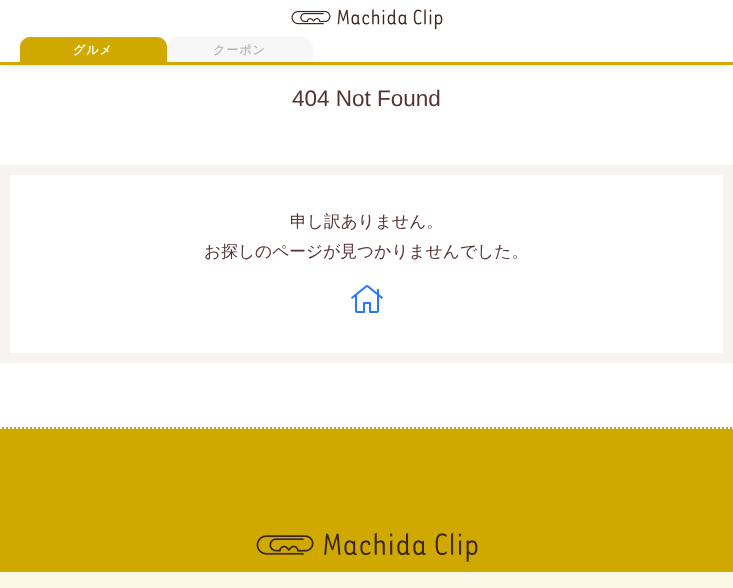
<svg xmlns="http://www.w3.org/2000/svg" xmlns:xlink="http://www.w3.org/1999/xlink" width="733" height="588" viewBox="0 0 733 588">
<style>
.cls-1{font:bold 12px WenQuanYi Zen Hei;letter-spacing:1px;fill:#ffffff}
.cls-2{font:bold 12px WenQuanYi Zen Hei;letter-spacing:1px;fill:#b9b9b9}
.cls-3{font:22.5px Liberation Sans;fill:#553333}
.cls-4{font:500 16.75px WenQuanYi Zen Hei;fill:#553333}
</style>
<defs>
<clipPath id="clip1"><rect x="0" y="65" width="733" height="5"/></clipPath>
</defs>
<rect width="100%" height="100%" fill="#ffffff"/>
<g clip-path="url(#clip1)">
<rect fill="#000000" fill-opacity="0.2" filter="blur(6.5px)" x="3" y="3" width="727" height="59"/>
</g>
<image xlink:href="image0.png" x="291" y="9" width="152" height="20"/>
<rect fill="#d0a900" x="0" y="62" width="733" height="3"/>
<path fill="#d0a900" d="M30 37H157C162.5 37 167 41.5 167 47V62H20V47C20 41.5 24.5 37 30 37Z"/>
<path fill="#f7f7f7" d="M177 37H303C308.5 37 313 41.5 313 47V62H167V47C167 41.5 171.5 37 177 37Z"/>
<rect fill="none" stroke="#f6f3f2" stroke-width="10" x="5" y="170" width="723" height="188"/>
<image xlink:href="image1.png" x="351" y="285" width="32" height="28"/>
<rect fill="#d0a900" x="0" y="427" width="733" height="161"/>
<path fill="none" stroke="#ffffff" stroke-width="2" stroke-dasharray="2 2" d="M0 428H733"/>
<image xlink:href="image2.png" x="256" y="532" width="222" height="30"/>
<rect fill="#ffffff" fill-opacity="0.9" x="0" y="572" width="733" height="16"/>
<text class="cls-1" x="73" y="54">グルメ</text>
<text class="cls-2" x="213" y="54">クーポン</text>
<text class="cls-3" x="292" y="106">404 Not Found</text>
<text class="cls-4" x="290" y="227">申し訳ありません。</text>
<text class="cls-4" x="204" y="257">お探しのページが見つかりませんでした。</text>
</svg>
